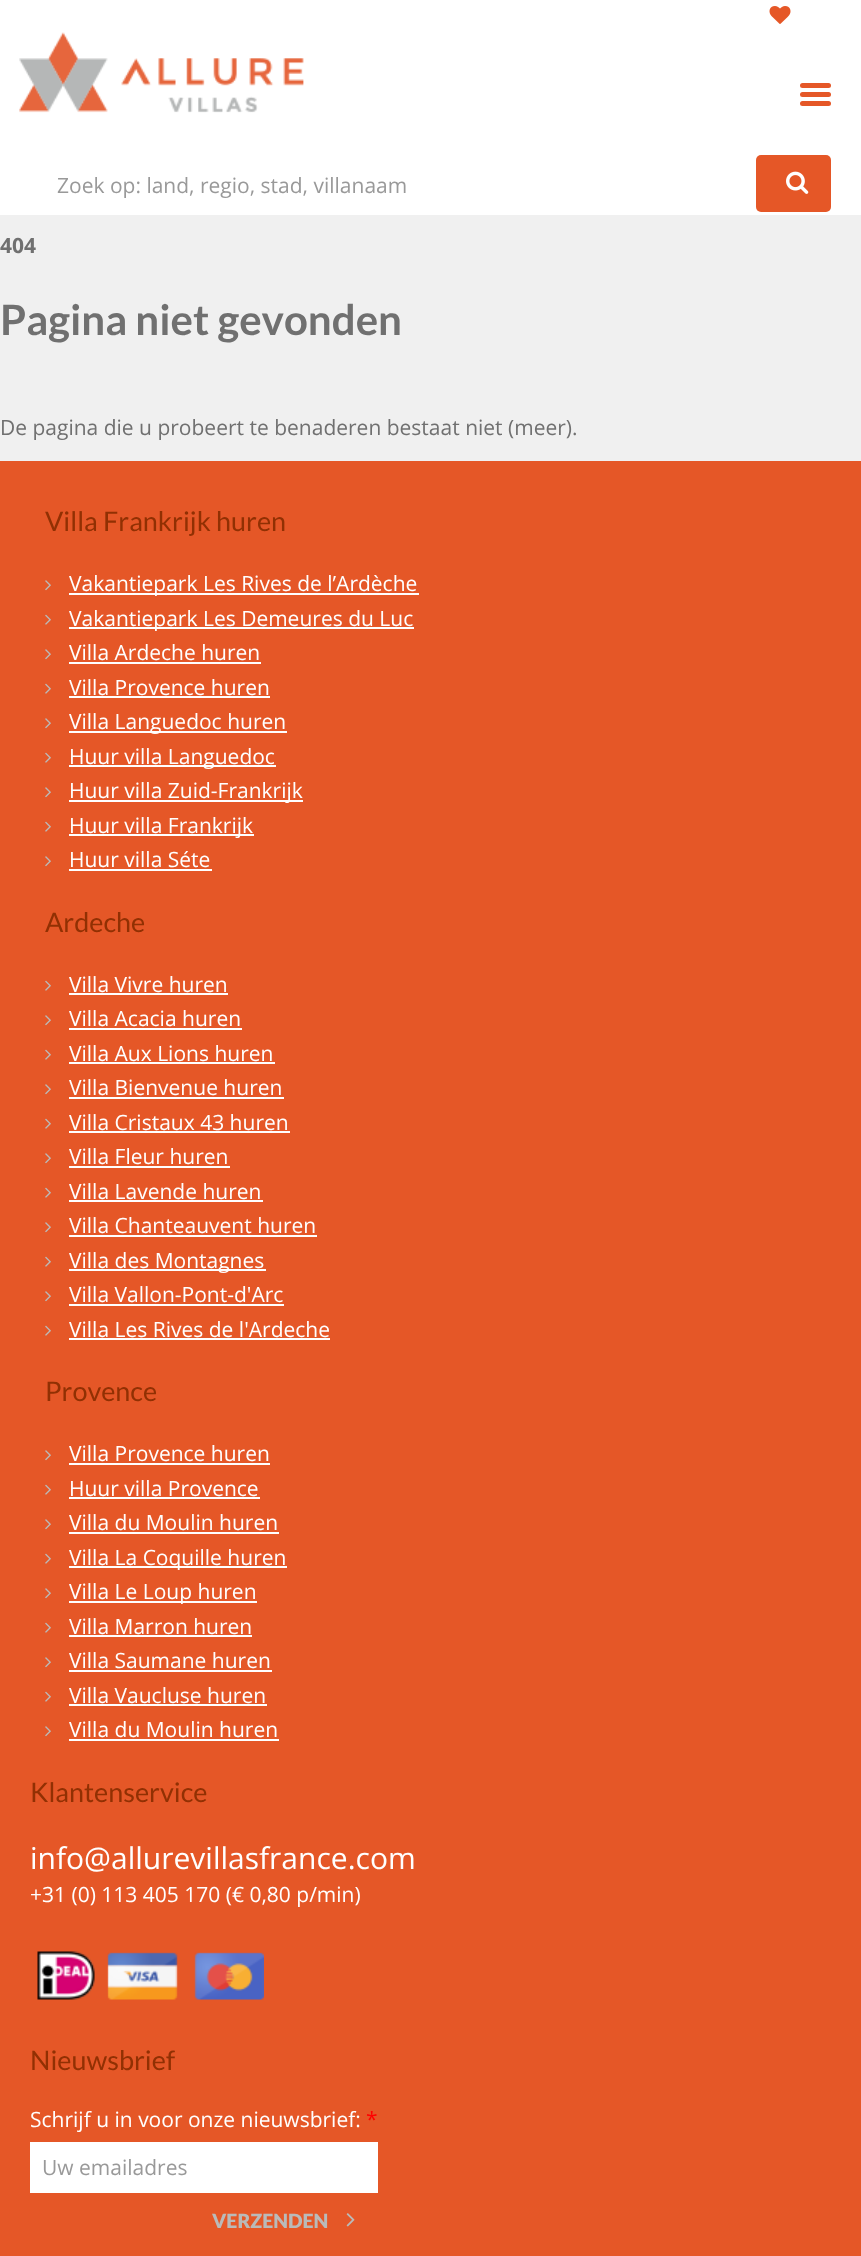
<svg xmlns="http://www.w3.org/2000/svg" xmlns:xlink="http://www.w3.org/1999/xlink" width="861" height="2256" viewBox="0 0 861 2256">
<style>*{font-kerning:none!important;font-variant-ligatures:none!important}</style>
<style>
.cls-1{font:21px Open Sans;fill:#999999}
.cls-2{font:bold 21px Open Sans;fill:#707070}
.cls-3{font:bold 42px Lato;fill:#707070}
.cls-4{font:21px Open Sans;fill:#707070}
.cls-5{font:27px Lato;fill:#913003}
.cls-6{font:21px Open Sans;fill:#ffffff}
.cls-7{font:30px Open Sans;fill:#ffffff}
.cls-8{font:21px Open Sans;fill:#ff0000}
.cls-9{font:900 19.5px Lato;fill:#babab9}
</style>
<rect width="100%" height="100%" fill="#f0f0f0"/>
<rect fill="#ffffff" x="0" y="0" width="861" height="215"/>
<image xlink:href="image0.png" x="19" y="32" width="285" height="81"/>
<image xlink:href="image1.png" x="769" y="6" width="22" height="18"/>
<rect fill="#e55727" x="800" y="83" width="31" height="5" rx="2.5"/>
<rect fill="#e55727" x="800" y="92" width="31" height="5" rx="2.5"/>
<rect fill="#e55727" x="800" y="101" width="31" height="5" rx="2.5"/>
<rect fill="#e55727" x="756" y="155" width="75" height="57" rx="5"/>
<image xlink:href="image2.png" x="786" y="171" width="23" height="23"/>
<rect fill="#e55727" x="0" y="461" width="861" height="1795"/>
<image xlink:href="image3.png" x="45" y="580" width="6" height="11"/>
<rect fill="#ffffff" x="69" y="593" width="350" height="2"/>
<image xlink:href="image4.png" x="45" y="614" width="6" height="11"/>
<rect fill="#ffffff" x="69" y="627" width="345" height="2"/>
<image xlink:href="image3.png" x="45" y="649" width="6" height="11"/>
<rect fill="#ffffff" x="69" y="662" width="192" height="2"/>
<image xlink:href="image4.png" x="45" y="683" width="6" height="11"/>
<rect fill="#ffffff" x="69" y="696" width="201" height="2"/>
<image xlink:href="image3.png" x="45" y="718" width="6" height="11"/>
<rect fill="#ffffff" x="69" y="731" width="218" height="2"/>
<image xlink:href="image4.png" x="45" y="752" width="6" height="11"/>
<rect fill="#ffffff" x="69" y="765" width="207" height="2"/>
<image xlink:href="image3.png" x="45" y="787" width="6" height="11"/>
<rect fill="#ffffff" x="69" y="800" width="234" height="2"/>
<image xlink:href="image4.png" x="45" y="821" width="6" height="11"/>
<rect fill="#ffffff" x="69" y="834" width="185" height="2"/>
<image xlink:href="image3.png" x="45" y="856" width="6" height="11"/>
<rect fill="#ffffff" x="69" y="869" width="143" height="2"/>
<image xlink:href="image4.png" x="45" y="980" width="6" height="11"/>
<rect fill="#ffffff" x="69" y="993" width="159" height="2"/>
<image xlink:href="image3.png" x="45" y="1015" width="6" height="11"/>
<rect fill="#ffffff" x="69" y="1028" width="173" height="2"/>
<image xlink:href="image4.png" x="45" y="1049" width="6" height="11"/>
<rect fill="#ffffff" x="69" y="1062" width="206" height="2"/>
<image xlink:href="image3.png" x="45" y="1084" width="6" height="11"/>
<rect fill="#ffffff" x="69" y="1097" width="215" height="2"/>
<image xlink:href="image4.png" x="45" y="1118" width="6" height="11"/>
<rect fill="#ffffff" x="69" y="1131" width="221" height="2"/>
<image xlink:href="image3.png" x="45" y="1153" width="6" height="11"/>
<rect fill="#ffffff" x="69" y="1166" width="161" height="2"/>
<image xlink:href="image4.png" x="45" y="1187" width="6" height="11"/>
<rect fill="#ffffff" x="69" y="1200" width="194" height="2"/>
<image xlink:href="image3.png" x="45" y="1222" width="6" height="11"/>
<rect fill="#ffffff" x="69" y="1235" width="248" height="2"/>
<image xlink:href="image4.png" x="45" y="1256" width="6" height="11"/>
<rect fill="#ffffff" x="69" y="1269" width="197" height="2"/>
<image xlink:href="image3.png" x="45" y="1291" width="6" height="11"/>
<rect fill="#ffffff" x="69" y="1304" width="215" height="2"/>
<image xlink:href="image4.png" x="45" y="1325" width="6" height="11"/>
<rect fill="#ffffff" x="69" y="1338" width="261" height="2"/>
<image xlink:href="image3.png" x="45" y="1450" width="6" height="11"/>
<rect fill="#ffffff" x="69" y="1463" width="201" height="2"/>
<image xlink:href="image4.png" x="45" y="1484" width="6" height="11"/>
<rect fill="#ffffff" x="69" y="1497" width="191" height="2"/>
<image xlink:href="image3.png" x="45" y="1519" width="6" height="11"/>
<rect fill="#ffffff" x="69" y="1532" width="210" height="2"/>
<image xlink:href="image4.png" x="45" y="1553" width="6" height="11"/>
<rect fill="#ffffff" x="69" y="1566" width="218" height="2"/>
<image xlink:href="image3.png" x="45" y="1588" width="6" height="11"/>
<rect fill="#ffffff" x="69" y="1601" width="188" height="2"/>
<image xlink:href="image4.png" x="45" y="1622" width="6" height="11"/>
<rect fill="#ffffff" x="69" y="1635" width="183" height="2"/>
<image xlink:href="image3.png" x="45" y="1657" width="6" height="11"/>
<rect fill="#ffffff" x="69" y="1670" width="203" height="2"/>
<image xlink:href="image4.png" x="45" y="1691" width="6" height="11"/>
<rect fill="#ffffff" x="69" y="1704" width="198" height="2"/>
<image xlink:href="image3.png" x="45" y="1726" width="6" height="11"/>
<rect fill="#ffffff" x="69" y="1739" width="210" height="2"/>
<image xlink:href="image5.png" x="37" y="1951" width="58" height="49"/>
<image xlink:href="image6.png" x="107" y="1952" width="71" height="48"/>
<image xlink:href="image7.png" x="194" y="1952" width="70" height="48"/>
<rect fill="#ffffff" x="30" y="2142" width="348" height="51"/>
<image xlink:href="image8.png" x="346" y="2213" width="9" height="14"/>
<text class="cls-1" x="57" y="193">Zoek op: land, regio, stad, villanaam</text>
<text class="cls-2" x="0" y="253">404</text>
<text class="cls-3" x="0" y="335">Pagina niet gevonden</text>
<text class="cls-4" x="0" y="435">De pagina die u probeert te benaderen bestaat niet (meer).</text>
<text class="cls-5" x="45" y="531">Villa Frankrijk huren</text>
<text class="cls-6"><tspan x="69" y="591">Vakantiepark Les Rives de l’Ardèche</tspan><tspan x="69" y="626">Vakantiepark Les Demeures du Luc</tspan><tspan x="69" y="660">Villa Ardeche huren</tspan><tspan x="69" y="695">Villa Provence huren</tspan><tspan x="69" y="729">Villa Languedoc huren</tspan><tspan x="69" y="764">Huur villa Languedoc</tspan><tspan x="69" y="798">Huur villa Zuid-Frankrijk</tspan><tspan x="69" y="833">Huur villa Frankrijk</tspan><tspan x="69" y="867">Huur villa Séte</tspan></text>
<text class="cls-5" x="45" y="932">Ardeche</text>
<text class="cls-6"><tspan x="69" y="992">Villa Vivre huren</tspan><tspan x="69" y="1026">Villa Acacia huren</tspan><tspan x="69" y="1061">Villa Aux Lions huren</tspan><tspan x="69" y="1095">Villa Bienvenue huren</tspan><tspan x="69" y="1130">Villa Cristaux 43 huren</tspan><tspan x="69" y="1164">Villa Fleur huren</tspan><tspan x="69" y="1199">Villa Lavende huren</tspan><tspan x="69" y="1233">Villa Chanteauvent huren</tspan><tspan x="69" y="1268">Villa des Montagnes</tspan><tspan x="69" y="1302">Villa Vallon-Pont-d'Arc</tspan><tspan x="69" y="1337">Villa Les Rives de l'Ardeche</tspan></text>
<text class="cls-5" x="45" y="1401">Provence</text>
<text class="cls-6"><tspan x="69" y="1461">Villa Provence huren</tspan><tspan x="69" y="1496">Huur villa Provence</tspan><tspan x="69" y="1530">Villa du Moulin huren</tspan><tspan x="69" y="1565">Villa La Coquille huren</tspan><tspan x="69" y="1599">Villa Le Loup huren</tspan><tspan x="69" y="1634">Villa Marron huren</tspan><tspan x="69" y="1668">Villa Saumane huren</tspan><tspan x="69" y="1703">Villa Vaucluse huren</tspan><tspan x="69" y="1737">Villa du Moulin huren</tspan></text>
<text class="cls-5" x="30" y="1802">Klantenservice</text>
<text class="cls-7" x="30" y="1869">info@allurevillasfrance.com</text>
<text class="cls-6" x="30" y="1902">+31 (0) 113 405 170 (€ 0,80 p/min)</text>
<text class="cls-5" x="30" y="2070">Nieuwsbrief</text>
<text class="cls-6" x="30" y="2127">Schrijf u in voor onze nieuwsbrief:</text>
<text class="cls-8" x="366" y="2127">*</text>
<text class="cls-1" x="42" y="2175">Uw emailadres</text>
<text class="cls-9" x="212" y="2228">VERZENDEN</text>
</svg>
